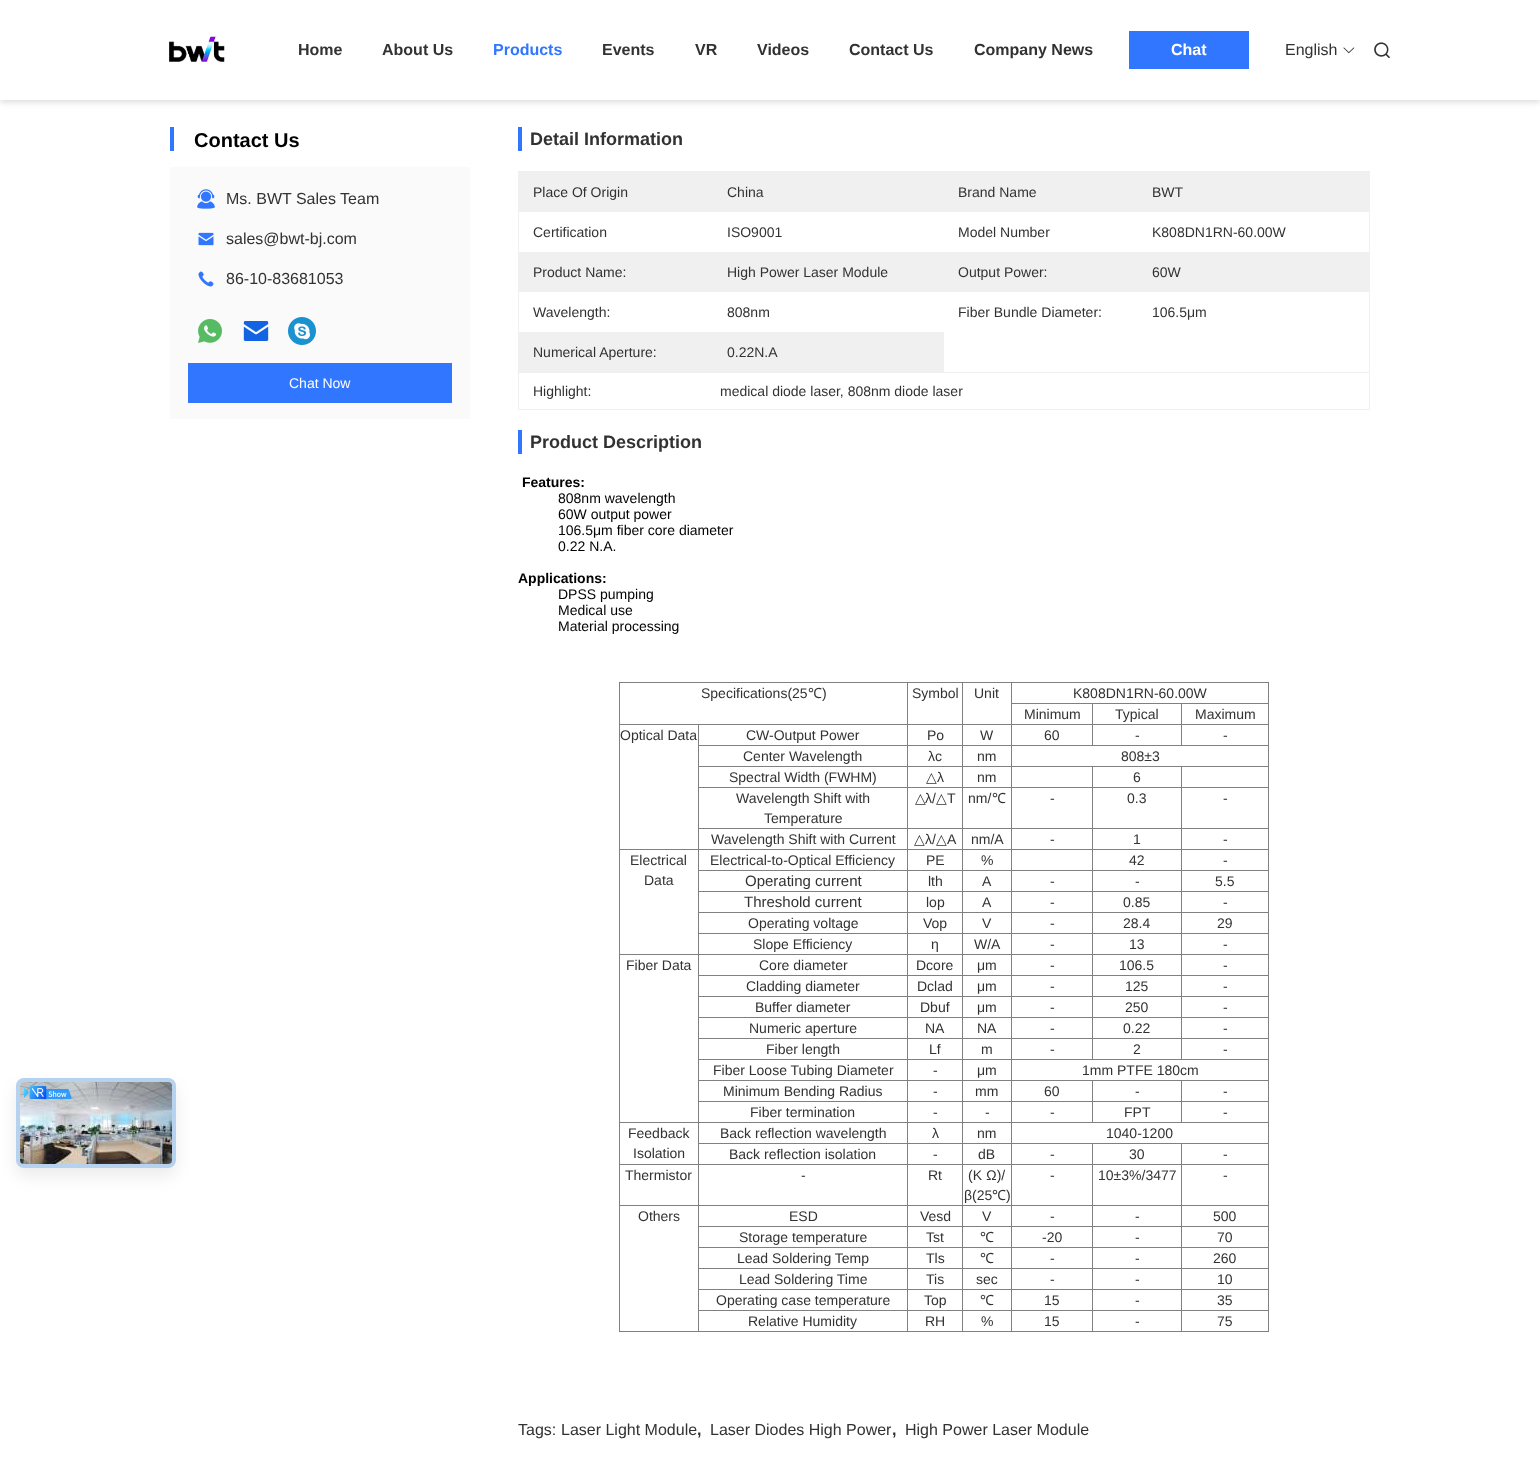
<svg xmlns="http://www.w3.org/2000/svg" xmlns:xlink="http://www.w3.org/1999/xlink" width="1540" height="1458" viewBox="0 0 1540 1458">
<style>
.cls-1{font:bold 16px Liberation Sans;fill:#323232}
.cls-2{font:bold 16px Liberation Sans;fill:#3176ff}
.cls-3{font:bold 16px Liberation Sans;fill:#ffffff}
.cls-4{font:16px Liberation Sans;fill:#323232}
.cls-5{font:bold 20px Liberation Sans;fill:#000000}
.cls-6{font:14px Liberation Sans;fill:#ffffff}
.cls-7{font:bold 18px Liberation Sans;fill:#323232}
.cls-8{font:14px Liberation Sans;fill:#323232}
.cls-9{font:bold 14px Liberation Sans;fill:#000000}
.cls-10{font:14px Liberation Sans;fill:#000000}
.cls-11{font:14px Noto Sans;fill:#323232}
.cls-12{font:14px DejaVu Sans;fill:#323232}
.cls-13{font:15px Liberation Sans;fill:#323232}
</style>
<rect width="100%" height="100%" fill="#ffffff"/>
<rect fill="#000000" fill-opacity="0.15" filter="blur(3px)" x="0" y="2" width="1540" height="100"/>
<rect fill="#ffffff" x="0" y="0" width="1540" height="100"/>
<image xlink:href="image0.png" x="169" y="36" width="56" height="26"/>
<rect fill="#3176ff" x="1129" y="31" width="120" height="38"/>
<image xlink:href="image1.png" x="1343" y="47" width="12" height="7"/>
<image xlink:href="image2.png" x="1374" y="42" width="16" height="17"/>
<rect fill="#000000" fill-opacity="0.08" filter="blur(8px)" x="16" y="1086" width="160" height="90" rx="8"/>
<rect fill="#eeeeee" x="16" y="1078" width="160" height="90" rx="8"/>
<rect fill="none" stroke="#0478ed" stroke-opacity="0.24" stroke-width="4" x="18" y="1080" width="156" height="86" rx="6"/>
<image xlink:href="image3.png" x="20" y="1082" width="152" height="82"/>
<image xlink:href="image4.png" x="24" y="1086" width="48" height="13"/>
<rect fill="#3176ff" x="170" y="127" width="4" height="24"/>
<rect fill="#fafafa" x="170" y="167" width="300" height="252"/>
<image xlink:href="image5.png" x="197" y="189" width="18" height="20"/>
<image xlink:href="image6.png" x="198" y="232" width="16" height="14"/>
<image xlink:href="image7.png" x="198" y="271" width="16" height="16"/>
<image xlink:href="image8.png" x="198" y="319" width="24" height="24"/>
<image xlink:href="image9.png" x="243" y="321" width="26" height="20"/>
<image xlink:href="image10.png" x="288" y="317" width="28" height="28"/>
<rect fill="#3176ff" x="188" y="363" width="264" height="40"/>
<rect fill="#3176ff" x="518" y="127" width="4" height="24"/>
<rect fill="none" stroke="#f0f0f0" x="518.5" y="171.5" width="851" height="201"/>
<rect fill="#f0f0f0" x="519" y="172" width="850" height="40"/>
<rect fill="#f0f0f0" x="519" y="252" width="850" height="40"/>
<rect fill="#f0f0f0" x="519" y="332" width="425" height="40"/>
<rect fill="#f0f0f0" x="1369" y="373" width="1" height="37"/>
<rect fill="#f0f0f0" x="518" y="409" width="852" height="1"/>
<rect fill="#f0f0f0" x="518" y="373" width="1" height="37"/>
<rect fill="#3176ff" x="518" y="430" width="4" height="24"/>
<rect fill="#808080" x="619" y="682" width="650" height="1"/>
<rect fill="#808080" x="1268" y="682" width="1" height="650"/>
<rect fill="#808080" x="619" y="1331" width="650" height="1"/>
<rect fill="#808080" x="619" y="682" width="1" height="650"/>
<rect fill="#808080" x="1181" y="724" width="88" height="1"/>
<rect fill="#808080" x="1011" y="745" width="258" height="1"/>
<rect fill="#808080" x="1181" y="724" width="1" height="22"/>
<rect fill="#808080" x="1092" y="724" width="90" height="1"/>
<rect fill="#808080" x="1092" y="724" width="1" height="22"/>
<rect fill="#808080" x="1011" y="724" width="82" height="1"/>
<rect fill="#808080" x="1181" y="766" width="88" height="1"/>
<rect fill="#808080" x="1181" y="787" width="88" height="1"/>
<rect fill="#808080" x="1181" y="828" width="88" height="1"/>
<rect fill="#808080" x="1181" y="849" width="88" height="1"/>
<rect fill="#808080" x="1181" y="870" width="88" height="1"/>
<rect fill="#808080" x="1181" y="891" width="88" height="1"/>
<rect fill="#808080" x="1181" y="912" width="88" height="1"/>
<rect fill="#808080" x="1181" y="933" width="88" height="1"/>
<rect fill="#808080" x="1181" y="954" width="88" height="1"/>
<rect fill="#808080" x="1181" y="975" width="88" height="1"/>
<rect fill="#808080" x="1181" y="996" width="88" height="1"/>
<rect fill="#808080" x="1181" y="1017" width="88" height="1"/>
<rect fill="#808080" x="1181" y="1038" width="88" height="1"/>
<rect fill="#808080" x="1011" y="1059" width="258" height="1"/>
<rect fill="#808080" x="1181" y="1038" width="1" height="22"/>
<rect fill="#808080" x="1092" y="1038" width="90" height="1"/>
<rect fill="#808080" x="1181" y="1017" width="1" height="22"/>
<rect fill="#808080" x="1092" y="1017" width="90" height="1"/>
<rect fill="#808080" x="1181" y="996" width="1" height="22"/>
<rect fill="#808080" x="1092" y="996" width="90" height="1"/>
<rect fill="#808080" x="1181" y="975" width="1" height="22"/>
<rect fill="#808080" x="1092" y="975" width="90" height="1"/>
<rect fill="#808080" x="1181" y="954" width="1" height="22"/>
<rect fill="#808080" x="1092" y="954" width="90" height="1"/>
<rect fill="#808080" x="1181" y="933" width="1" height="22"/>
<rect fill="#808080" x="1092" y="933" width="90" height="1"/>
<rect fill="#808080" x="1181" y="912" width="1" height="22"/>
<rect fill="#808080" x="1092" y="912" width="90" height="1"/>
<rect fill="#808080" x="1181" y="891" width="1" height="22"/>
<rect fill="#808080" x="1092" y="891" width="90" height="1"/>
<rect fill="#808080" x="1181" y="870" width="1" height="22"/>
<rect fill="#808080" x="1092" y="870" width="90" height="1"/>
<rect fill="#808080" x="1181" y="849" width="1" height="22"/>
<rect fill="#808080" x="1092" y="849" width="90" height="1"/>
<rect fill="#808080" x="1181" y="828" width="1" height="22"/>
<rect fill="#808080" x="1092" y="828" width="90" height="1"/>
<rect fill="#808080" x="1181" y="787" width="1" height="42"/>
<rect fill="#808080" x="1092" y="787" width="90" height="1"/>
<rect fill="#808080" x="1181" y="766" width="1" height="22"/>
<rect fill="#808080" x="1092" y="766" width="90" height="1"/>
<rect fill="#808080" x="1092" y="1038" width="1" height="22"/>
<rect fill="#808080" x="1011" y="1038" width="82" height="1"/>
<rect fill="#808080" x="1092" y="1017" width="1" height="22"/>
<rect fill="#808080" x="1011" y="1017" width="82" height="1"/>
<rect fill="#808080" x="1092" y="996" width="1" height="22"/>
<rect fill="#808080" x="1011" y="996" width="82" height="1"/>
<rect fill="#808080" x="1092" y="975" width="1" height="22"/>
<rect fill="#808080" x="1011" y="975" width="82" height="1"/>
<rect fill="#808080" x="1092" y="954" width="1" height="22"/>
<rect fill="#808080" x="1011" y="954" width="82" height="1"/>
<rect fill="#808080" x="1092" y="933" width="1" height="22"/>
<rect fill="#808080" x="1011" y="933" width="82" height="1"/>
<rect fill="#808080" x="1092" y="912" width="1" height="22"/>
<rect fill="#808080" x="1011" y="912" width="82" height="1"/>
<rect fill="#808080" x="1092" y="891" width="1" height="22"/>
<rect fill="#808080" x="1011" y="891" width="82" height="1"/>
<rect fill="#808080" x="1092" y="870" width="1" height="22"/>
<rect fill="#808080" x="1011" y="870" width="82" height="1"/>
<rect fill="#808080" x="1092" y="849" width="1" height="22"/>
<rect fill="#808080" x="1011" y="849" width="82" height="1"/>
<rect fill="#808080" x="1092" y="828" width="1" height="22"/>
<rect fill="#808080" x="1011" y="828" width="82" height="1"/>
<rect fill="#808080" x="1092" y="787" width="1" height="42"/>
<rect fill="#808080" x="1011" y="787" width="82" height="1"/>
<rect fill="#808080" x="1092" y="766" width="1" height="22"/>
<rect fill="#808080" x="1011" y="766" width="82" height="1"/>
<rect fill="#808080" x="1181" y="1080" width="88" height="1"/>
<rect fill="#808080" x="1181" y="1101" width="88" height="1"/>
<rect fill="#808080" x="1011" y="1122" width="258" height="1"/>
<rect fill="#808080" x="1181" y="1101" width="1" height="22"/>
<rect fill="#808080" x="1092" y="1101" width="90" height="1"/>
<rect fill="#808080" x="1181" y="1080" width="1" height="22"/>
<rect fill="#808080" x="1092" y="1080" width="90" height="1"/>
<rect fill="#808080" x="1092" y="1101" width="1" height="22"/>
<rect fill="#808080" x="1011" y="1101" width="82" height="1"/>
<rect fill="#808080" x="1092" y="1080" width="1" height="22"/>
<rect fill="#808080" x="1011" y="1080" width="82" height="1"/>
<rect fill="#808080" x="1181" y="1143" width="88" height="1"/>
<rect fill="#808080" x="1181" y="1164" width="88" height="1"/>
<rect fill="#808080" x="1181" y="1205" width="88" height="1"/>
<rect fill="#808080" x="1181" y="1226" width="88" height="1"/>
<rect fill="#808080" x="1181" y="1247" width="88" height="1"/>
<rect fill="#808080" x="1181" y="1268" width="88" height="1"/>
<rect fill="#808080" x="1181" y="1289" width="88" height="1"/>
<rect fill="#808080" x="1181" y="1310" width="88" height="1"/>
<rect fill="#808080" x="1181" y="1310" width="1" height="22"/>
<rect fill="#808080" x="1092" y="1310" width="90" height="1"/>
<rect fill="#808080" x="1181" y="1289" width="1" height="22"/>
<rect fill="#808080" x="1092" y="1289" width="90" height="1"/>
<rect fill="#808080" x="1181" y="1268" width="1" height="22"/>
<rect fill="#808080" x="1092" y="1268" width="90" height="1"/>
<rect fill="#808080" x="1181" y="1247" width="1" height="22"/>
<rect fill="#808080" x="1092" y="1247" width="90" height="1"/>
<rect fill="#808080" x="1181" y="1226" width="1" height="22"/>
<rect fill="#808080" x="1092" y="1226" width="90" height="1"/>
<rect fill="#808080" x="1181" y="1205" width="1" height="22"/>
<rect fill="#808080" x="1092" y="1205" width="90" height="1"/>
<rect fill="#808080" x="1181" y="1164" width="1" height="42"/>
<rect fill="#808080" x="1092" y="1164" width="90" height="1"/>
<rect fill="#808080" x="1181" y="1143" width="1" height="22"/>
<rect fill="#808080" x="1092" y="1143" width="90" height="1"/>
<rect fill="#808080" x="1092" y="1310" width="1" height="22"/>
<rect fill="#808080" x="1011" y="1310" width="82" height="1"/>
<rect fill="#808080" x="1092" y="1289" width="1" height="22"/>
<rect fill="#808080" x="1011" y="1289" width="82" height="1"/>
<rect fill="#808080" x="1092" y="1268" width="1" height="22"/>
<rect fill="#808080" x="1011" y="1268" width="82" height="1"/>
<rect fill="#808080" x="1092" y="1247" width="1" height="22"/>
<rect fill="#808080" x="1011" y="1247" width="82" height="1"/>
<rect fill="#808080" x="1092" y="1226" width="1" height="22"/>
<rect fill="#808080" x="1011" y="1226" width="82" height="1"/>
<rect fill="#808080" x="1092" y="1205" width="1" height="22"/>
<rect fill="#808080" x="1011" y="1205" width="82" height="1"/>
<rect fill="#808080" x="1092" y="1164" width="1" height="42"/>
<rect fill="#808080" x="1011" y="1164" width="82" height="1"/>
<rect fill="#808080" x="1092" y="1143" width="1" height="22"/>
<rect fill="#808080" x="1011" y="1143" width="82" height="1"/>
<rect fill="#808080" x="1011" y="1310" width="1" height="22"/>
<rect fill="#808080" x="962" y="1310" width="50" height="1"/>
<rect fill="#808080" x="1011" y="1289" width="1" height="22"/>
<rect fill="#808080" x="962" y="1289" width="50" height="1"/>
<rect fill="#808080" x="1011" y="1268" width="1" height="22"/>
<rect fill="#808080" x="962" y="1268" width="50" height="1"/>
<rect fill="#808080" x="1011" y="1247" width="1" height="22"/>
<rect fill="#808080" x="962" y="1247" width="50" height="1"/>
<rect fill="#808080" x="1011" y="1226" width="1" height="22"/>
<rect fill="#808080" x="962" y="1226" width="50" height="1"/>
<rect fill="#808080" x="1011" y="1205" width="1" height="22"/>
<rect fill="#808080" x="962" y="1205" width="50" height="1"/>
<rect fill="#808080" x="1011" y="1164" width="1" height="42"/>
<rect fill="#808080" x="962" y="1164" width="50" height="1"/>
<rect fill="#808080" x="1011" y="1143" width="1" height="22"/>
<rect fill="#808080" x="962" y="1143" width="50" height="1"/>
<rect fill="#808080" x="1011" y="1122" width="1" height="22"/>
<rect fill="#808080" x="962" y="1122" width="50" height="1"/>
<rect fill="#808080" x="1011" y="1101" width="1" height="22"/>
<rect fill="#808080" x="962" y="1101" width="50" height="1"/>
<rect fill="#808080" x="1011" y="1080" width="1" height="22"/>
<rect fill="#808080" x="962" y="1080" width="50" height="1"/>
<rect fill="#808080" x="1011" y="1059" width="1" height="22"/>
<rect fill="#808080" x="962" y="1059" width="50" height="1"/>
<rect fill="#808080" x="1011" y="1038" width="1" height="22"/>
<rect fill="#808080" x="962" y="1038" width="50" height="1"/>
<rect fill="#808080" x="1011" y="1017" width="1" height="22"/>
<rect fill="#808080" x="962" y="1017" width="50" height="1"/>
<rect fill="#808080" x="1011" y="996" width="1" height="22"/>
<rect fill="#808080" x="962" y="996" width="50" height="1"/>
<rect fill="#808080" x="1011" y="975" width="1" height="22"/>
<rect fill="#808080" x="962" y="975" width="50" height="1"/>
<rect fill="#808080" x="1011" y="954" width="1" height="22"/>
<rect fill="#808080" x="962" y="954" width="50" height="1"/>
<rect fill="#808080" x="1011" y="933" width="1" height="22"/>
<rect fill="#808080" x="962" y="933" width="50" height="1"/>
<rect fill="#808080" x="1011" y="912" width="1" height="22"/>
<rect fill="#808080" x="962" y="912" width="50" height="1"/>
<rect fill="#808080" x="1011" y="891" width="1" height="22"/>
<rect fill="#808080" x="962" y="891" width="50" height="1"/>
<rect fill="#808080" x="1011" y="870" width="1" height="22"/>
<rect fill="#808080" x="962" y="870" width="50" height="1"/>
<rect fill="#808080" x="1011" y="849" width="1" height="22"/>
<rect fill="#808080" x="962" y="849" width="50" height="1"/>
<rect fill="#808080" x="1011" y="828" width="1" height="22"/>
<rect fill="#808080" x="962" y="828" width="50" height="1"/>
<rect fill="#808080" x="1011" y="787" width="1" height="42"/>
<rect fill="#808080" x="962" y="787" width="50" height="1"/>
<rect fill="#808080" x="1011" y="766" width="1" height="22"/>
<rect fill="#808080" x="962" y="766" width="50" height="1"/>
<rect fill="#808080" x="1011" y="745" width="1" height="22"/>
<rect fill="#808080" x="962" y="745" width="50" height="1"/>
<rect fill="#808080" x="1011" y="724" width="1" height="22"/>
<rect fill="#808080" x="962" y="724" width="50" height="1"/>
<rect fill="#808080" x="962" y="1310" width="1" height="22"/>
<rect fill="#808080" x="907" y="1310" width="56" height="1"/>
<rect fill="#808080" x="962" y="1289" width="1" height="22"/>
<rect fill="#808080" x="907" y="1289" width="56" height="1"/>
<rect fill="#808080" x="962" y="1268" width="1" height="22"/>
<rect fill="#808080" x="907" y="1268" width="56" height="1"/>
<rect fill="#808080" x="962" y="1247" width="1" height="22"/>
<rect fill="#808080" x="907" y="1247" width="56" height="1"/>
<rect fill="#808080" x="962" y="1226" width="1" height="22"/>
<rect fill="#808080" x="907" y="1226" width="56" height="1"/>
<rect fill="#808080" x="962" y="1205" width="1" height="22"/>
<rect fill="#808080" x="907" y="1205" width="56" height="1"/>
<rect fill="#808080" x="962" y="1164" width="1" height="42"/>
<rect fill="#808080" x="907" y="1164" width="56" height="1"/>
<rect fill="#808080" x="962" y="1143" width="1" height="22"/>
<rect fill="#808080" x="907" y="1143" width="56" height="1"/>
<rect fill="#808080" x="962" y="1122" width="1" height="22"/>
<rect fill="#808080" x="907" y="1122" width="56" height="1"/>
<rect fill="#808080" x="962" y="1101" width="1" height="22"/>
<rect fill="#808080" x="907" y="1101" width="56" height="1"/>
<rect fill="#808080" x="962" y="1080" width="1" height="22"/>
<rect fill="#808080" x="907" y="1080" width="56" height="1"/>
<rect fill="#808080" x="962" y="1059" width="1" height="22"/>
<rect fill="#808080" x="907" y="1059" width="56" height="1"/>
<rect fill="#808080" x="962" y="1038" width="1" height="22"/>
<rect fill="#808080" x="907" y="1038" width="56" height="1"/>
<rect fill="#808080" x="962" y="1017" width="1" height="22"/>
<rect fill="#808080" x="907" y="1017" width="56" height="1"/>
<rect fill="#808080" x="962" y="996" width="1" height="22"/>
<rect fill="#808080" x="907" y="996" width="56" height="1"/>
<rect fill="#808080" x="962" y="975" width="1" height="22"/>
<rect fill="#808080" x="907" y="975" width="56" height="1"/>
<rect fill="#808080" x="962" y="954" width="1" height="22"/>
<rect fill="#808080" x="907" y="954" width="56" height="1"/>
<rect fill="#808080" x="962" y="933" width="1" height="22"/>
<rect fill="#808080" x="907" y="933" width="56" height="1"/>
<rect fill="#808080" x="962" y="912" width="1" height="22"/>
<rect fill="#808080" x="907" y="912" width="56" height="1"/>
<rect fill="#808080" x="962" y="891" width="1" height="22"/>
<rect fill="#808080" x="907" y="891" width="56" height="1"/>
<rect fill="#808080" x="962" y="870" width="1" height="22"/>
<rect fill="#808080" x="907" y="870" width="56" height="1"/>
<rect fill="#808080" x="962" y="849" width="1" height="22"/>
<rect fill="#808080" x="907" y="849" width="56" height="1"/>
<rect fill="#808080" x="962" y="828" width="1" height="22"/>
<rect fill="#808080" x="907" y="828" width="56" height="1"/>
<rect fill="#808080" x="962" y="787" width="1" height="42"/>
<rect fill="#808080" x="907" y="787" width="56" height="1"/>
<rect fill="#808080" x="962" y="766" width="1" height="22"/>
<rect fill="#808080" x="907" y="766" width="56" height="1"/>
<rect fill="#808080" x="962" y="745" width="1" height="22"/>
<rect fill="#808080" x="907" y="745" width="56" height="1"/>
<rect fill="#808080" x="962" y="724" width="1" height="22"/>
<rect fill="#808080" x="907" y="724" width="56" height="1"/>
<rect fill="#808080" x="907" y="1310" width="1" height="22"/>
<rect fill="#808080" x="698" y="1310" width="210" height="1"/>
<rect fill="#808080" x="907" y="1289" width="1" height="22"/>
<rect fill="#808080" x="698" y="1289" width="210" height="1"/>
<rect fill="#808080" x="907" y="1268" width="1" height="22"/>
<rect fill="#808080" x="698" y="1268" width="210" height="1"/>
<rect fill="#808080" x="907" y="1247" width="1" height="22"/>
<rect fill="#808080" x="698" y="1247" width="210" height="1"/>
<rect fill="#808080" x="907" y="1226" width="1" height="22"/>
<rect fill="#808080" x="698" y="1226" width="210" height="1"/>
<rect fill="#808080" x="907" y="1205" width="1" height="22"/>
<rect fill="#808080" x="698" y="1205" width="210" height="1"/>
<rect fill="#808080" x="907" y="1164" width="1" height="42"/>
<rect fill="#808080" x="698" y="1164" width="210" height="1"/>
<rect fill="#808080" x="907" y="1143" width="1" height="22"/>
<rect fill="#808080" x="698" y="1143" width="210" height="1"/>
<rect fill="#808080" x="907" y="1122" width="1" height="22"/>
<rect fill="#808080" x="698" y="1122" width="210" height="1"/>
<rect fill="#808080" x="907" y="1101" width="1" height="22"/>
<rect fill="#808080" x="698" y="1101" width="210" height="1"/>
<rect fill="#808080" x="907" y="1080" width="1" height="22"/>
<rect fill="#808080" x="698" y="1080" width="210" height="1"/>
<rect fill="#808080" x="907" y="1059" width="1" height="22"/>
<rect fill="#808080" x="698" y="1059" width="210" height="1"/>
<rect fill="#808080" x="907" y="1038" width="1" height="22"/>
<rect fill="#808080" x="698" y="1038" width="210" height="1"/>
<rect fill="#808080" x="907" y="1017" width="1" height="22"/>
<rect fill="#808080" x="698" y="1017" width="210" height="1"/>
<rect fill="#808080" x="907" y="996" width="1" height="22"/>
<rect fill="#808080" x="698" y="996" width="210" height="1"/>
<rect fill="#808080" x="907" y="975" width="1" height="22"/>
<rect fill="#808080" x="698" y="975" width="210" height="1"/>
<rect fill="#808080" x="907" y="954" width="1" height="22"/>
<rect fill="#808080" x="698" y="954" width="210" height="1"/>
<rect fill="#808080" x="907" y="933" width="1" height="22"/>
<rect fill="#808080" x="698" y="933" width="210" height="1"/>
<rect fill="#808080" x="907" y="912" width="1" height="22"/>
<rect fill="#808080" x="698" y="912" width="210" height="1"/>
<rect fill="#808080" x="907" y="891" width="1" height="22"/>
<rect fill="#808080" x="698" y="891" width="210" height="1"/>
<rect fill="#808080" x="907" y="870" width="1" height="22"/>
<rect fill="#808080" x="698" y="870" width="210" height="1"/>
<rect fill="#808080" x="907" y="849" width="1" height="22"/>
<rect fill="#808080" x="698" y="849" width="210" height="1"/>
<rect fill="#808080" x="907" y="828" width="1" height="22"/>
<rect fill="#808080" x="698" y="828" width="210" height="1"/>
<rect fill="#808080" x="907" y="787" width="1" height="42"/>
<rect fill="#808080" x="698" y="787" width="210" height="1"/>
<rect fill="#808080" x="907" y="766" width="1" height="22"/>
<rect fill="#808080" x="698" y="766" width="210" height="1"/>
<rect fill="#808080" x="907" y="745" width="1" height="22"/>
<rect fill="#808080" x="698" y="745" width="210" height="1"/>
<rect fill="#808080" x="907" y="724" width="1" height="22"/>
<rect fill="#808080" x="698" y="724" width="210" height="1"/>
<rect fill="#808080" x="907" y="682" width="1" height="43"/>
<rect fill="#808080" x="962" y="682" width="1" height="43"/>
<rect fill="#808080" x="1181" y="703" width="88" height="1"/>
<rect fill="#808080" x="1181" y="703" width="1" height="22"/>
<rect fill="#808080" x="1092" y="703" width="90" height="1"/>
<rect fill="#808080" x="1092" y="703" width="1" height="22"/>
<rect fill="#808080" x="1011" y="703" width="82" height="1"/>
<rect fill="#808080" x="1011" y="682" width="1" height="43"/>
<rect fill="#808080" x="698" y="1310" width="1" height="22"/>
<rect fill="#808080" x="698" y="1289" width="1" height="22"/>
<rect fill="#808080" x="698" y="1268" width="1" height="22"/>
<rect fill="#808080" x="698" y="1247" width="1" height="22"/>
<rect fill="#808080" x="698" y="1226" width="1" height="22"/>
<rect fill="#808080" x="698" y="1205" width="1" height="22"/>
<rect fill="#808080" x="619" y="1205" width="80" height="1"/>
<rect fill="#808080" x="698" y="1164" width="1" height="42"/>
<rect fill="#808080" x="619" y="1164" width="80" height="1"/>
<rect fill="#808080" x="698" y="1143" width="1" height="22"/>
<rect fill="#808080" x="698" y="1122" width="1" height="22"/>
<rect fill="#808080" x="619" y="1122" width="80" height="1"/>
<rect fill="#808080" x="698" y="1101" width="1" height="22"/>
<rect fill="#808080" x="698" y="1080" width="1" height="22"/>
<rect fill="#808080" x="698" y="1059" width="1" height="22"/>
<rect fill="#808080" x="698" y="1038" width="1" height="22"/>
<rect fill="#808080" x="698" y="1017" width="1" height="22"/>
<rect fill="#808080" x="698" y="996" width="1" height="22"/>
<rect fill="#808080" x="698" y="975" width="1" height="22"/>
<rect fill="#808080" x="698" y="954" width="1" height="22"/>
<rect fill="#808080" x="619" y="954" width="80" height="1"/>
<rect fill="#808080" x="698" y="933" width="1" height="22"/>
<rect fill="#808080" x="698" y="912" width="1" height="22"/>
<rect fill="#808080" x="698" y="891" width="1" height="22"/>
<rect fill="#808080" x="698" y="870" width="1" height="22"/>
<rect fill="#808080" x="698" y="849" width="1" height="22"/>
<rect fill="#808080" x="619" y="849" width="80" height="1"/>
<rect fill="#808080" x="698" y="828" width="1" height="22"/>
<rect fill="#808080" x="698" y="787" width="1" height="42"/>
<rect fill="#808080" x="698" y="766" width="1" height="22"/>
<rect fill="#808080" x="698" y="745" width="1" height="22"/>
<rect fill="#808080" x="698" y="724" width="1" height="22"/>
<rect fill="#808080" x="619" y="724" width="80" height="1"/>
<text class="cls-1" x="298" y="55">Home</text>
<text class="cls-1" x="382" y="55">About Us</text>
<text class="cls-2" x="493" y="55">Products</text>
<text class="cls-1" x="602" y="55">Events</text>
<text class="cls-1" x="695" y="55">VR</text>
<text class="cls-1" x="757" y="55">Videos</text>
<text class="cls-1" x="849" y="55">Contact Us</text>
<text class="cls-1" x="974" y="55">Company News</text>
<text class="cls-3" x="1171" y="55">Chat</text>
<text class="cls-4" x="1285" y="55">English</text>
<text class="cls-5" x="194" y="147">Contact Us</text>
<text class="cls-4" x="226" y="204">Ms. BWT Sales Team</text>
<text class="cls-4" x="226" y="244">sales@bwt-bj.com</text>
<text class="cls-4" x="226" y="284">86-10-83681053</text>
<text class="cls-6" x="289" y="388">Chat Now</text>
<text class="cls-7" x="530" y="145">Detail Information</text>
<text class="cls-8" x="533" y="197">Place Of Origin</text>
<text class="cls-8" x="727" y="197">China</text>
<text class="cls-8" x="958" y="197">Brand Name</text>
<text class="cls-8" x="1152" y="197">BWT</text>
<text class="cls-8" x="533" y="237">Certification</text>
<text class="cls-8" x="727" y="237">ISO9001</text>
<text class="cls-8" x="958" y="237">Model Number</text>
<text class="cls-8" x="1152" y="237">K808DN1RN-60.00W</text>
<text class="cls-8" x="533" y="277">Product Name:</text>
<text class="cls-8" x="727" y="277">High Power Laser Module</text>
<text class="cls-8" x="958" y="277">Output Power:</text>
<text class="cls-8" x="1152" y="277">60W</text>
<text class="cls-8" x="533" y="317">Wavelength:</text>
<text class="cls-8" x="727" y="317">808nm</text>
<text class="cls-8" x="958" y="317">Fiber Bundle Diameter:</text>
<text class="cls-8" x="1152" y="317">106.5μm</text>
<text class="cls-8" x="533" y="357">Numerical Aperture:</text>
<text class="cls-8" x="727" y="357">0.22N.A</text>
<text class="cls-8" x="533" y="396">Highlight:</text>
<text class="cls-8" x="720" y="396">medical diode laser, 808nm diode laser</text>
<text class="cls-7" x="530" y="448">Product Description</text>
<text class="cls-9" x="522" y="487">Features:</text>
<text class="cls-10"><tspan x="558" y="503">808nm wavelength</tspan><tspan x="558" y="519">60W output power</tspan><tspan x="558" y="535">106.5μm fiber core diameter</tspan><tspan x="558" y="551">0.22 N.A.</tspan></text>
<text class="cls-9" x="518" y="583">Applications:</text>
<text class="cls-10"><tspan x="558" y="599">DPSS pumping</tspan><tspan x="558" y="615">Medical use</tspan><tspan x="558" y="631">Material processing</tspan></text>
<text class="cls-8" x="701" y="698">Specifications(25</text>
<text class="cls-11" x="808" y="698">℃</text>
<text class="cls-8" x="822" y="698">)</text>
<text class="cls-8" x="912" y="698">Symbol</text>
<text class="cls-8" x="974" y="698">Unit</text>
<text class="cls-8" x="1073" y="698">K808DN1RN-60.00W</text>
<text class="cls-8" x="1024" y="719">Minimum</text>
<text class="cls-8" x="1115" y="719">Typical</text>
<text class="cls-8" x="1195" y="719">Maximum</text>
<text class="cls-8" x="620" y="740">Optical Data</text>
<text class="cls-8" x="746" y="740">CW-Output Power</text>
<text class="cls-8" x="927" y="740">Po</text>
<text class="cls-8" x="980" y="740">W</text>
<text class="cls-8" x="1044" y="740">60</text>
<text class="cls-8" x="1135" y="740">-</text>
<text class="cls-8" x="1223" y="740">-</text>
<text class="cls-8" x="743" y="761">Center Wavelength</text>
<text class="cls-8" x="928" y="761">λc</text>
<text class="cls-8" x="977" y="761">nm</text>
<text class="cls-8" x="1121" y="761">808±3</text>
<text class="cls-8" x="729" y="782">Spectral Width (FWHM)</text>
<text class="cls-12" x="926" y="782">△</text>
<text class="cls-8" x="937" y="782">λ</text>
<text class="cls-8" x="977" y="782">nm</text>
<text class="cls-8" x="1133" y="782">6</text>
<text class="cls-8" x="736" y="803">Wavelength Shift with</text>
<text class="cls-8" x="764" y="823">Temperature</text>
<text class="cls-12" x="915" y="803">△</text>
<text class="cls-8" x="925" y="803">λ/</text>
<text class="cls-12" x="936" y="803">△</text>
<text class="cls-8" x="947" y="803">T</text>
<text class="cls-8" x="968" y="803">nm/</text>
<text class="cls-11" x="992" y="803">℃</text>
<text class="cls-8" x="1050" y="803">-</text>
<text class="cls-8" x="1127" y="803">0.3</text>
<text class="cls-8" x="1223" y="803">-</text>
<text class="cls-8" x="711" y="844">Wavelength Shift with Current</text>
<text class="cls-12" x="914" y="844">△</text>
<text class="cls-8" x="925" y="844">λ/</text>
<text class="cls-12" x="936" y="844">△</text>
<text class="cls-8" x="947" y="844">A</text>
<text class="cls-8" x="971" y="844">nm/A</text>
<text class="cls-8" x="1050" y="844">-</text>
<text class="cls-8" x="1133" y="844">1</text>
<text class="cls-8" x="1223" y="844">-</text>
<text class="cls-8" x="630" y="865">Electrical</text>
<text class="cls-8" x="644" y="885">Data</text>
<text class="cls-8" x="710" y="865">Electrical-to-Optical Efficiency</text>
<text class="cls-8" x="926" y="865">PE</text>
<text class="cls-8" x="981" y="865">%</text>
<text class="cls-8" x="1129" y="865">42</text>
<text class="cls-8" x="1223" y="865">-</text>
<text class="cls-13" x="745" y="886">Operating current</text>
<text class="cls-8" x="928" y="886">lth</text>
<text class="cls-8" x="982" y="886">A</text>
<text class="cls-8" x="1050" y="886">-</text>
<text class="cls-8" x="1135" y="886">-</text>
<text class="cls-8" x="1215" y="886">5.5</text>
<text class="cls-13" x="744" y="907">Threshold current</text>
<text class="cls-8" x="926" y="907">lop</text>
<text class="cls-8" x="982" y="907">A</text>
<text class="cls-8" x="1050" y="907">-</text>
<text class="cls-8" x="1123" y="907">0.85</text>
<text class="cls-8" x="1223" y="907">-</text>
<text class="cls-8" x="748" y="928">Operating voltage</text>
<text class="cls-8" x="923" y="928">Vop</text>
<text class="cls-8" x="982" y="928">V</text>
<text class="cls-8" x="1050" y="928">-</text>
<text class="cls-8" x="1123" y="928">28.4</text>
<text class="cls-8" x="1217" y="928">29</text>
<text class="cls-8" x="753" y="949">Slope Efficiency</text>
<text class="cls-8" x="931" y="949">η</text>
<text class="cls-8" x="974" y="949">W/A</text>
<text class="cls-8" x="1050" y="949">-</text>
<text class="cls-8" x="1129" y="949">13</text>
<text class="cls-8" x="1223" y="949">-</text>
<text class="cls-8" x="626" y="970">Fiber Data</text>
<text class="cls-8" x="759" y="970">Core diameter</text>
<text class="cls-8" x="916" y="970">Dcore</text>
<text class="cls-8" x="977" y="970">μm</text>
<text class="cls-8" x="1050" y="970">-</text>
<text class="cls-8" x="1119" y="970">106.5</text>
<text class="cls-8" x="1223" y="970">-</text>
<text class="cls-8" x="746" y="991">Cladding diameter</text>
<text class="cls-8" x="917" y="991">Dclad</text>
<text class="cls-8" x="977" y="991">μm</text>
<text class="cls-8" x="1050" y="991">-</text>
<text class="cls-8" x="1125" y="991">125</text>
<text class="cls-8" x="1223" y="991">-</text>
<text class="cls-8" x="755" y="1012">Buffer diameter</text>
<text class="cls-8" x="920" y="1012">Dbuf</text>
<text class="cls-8" x="977" y="1012">μm</text>
<text class="cls-8" x="1050" y="1012">-</text>
<text class="cls-8" x="1125" y="1012">250</text>
<text class="cls-8" x="1223" y="1012">-</text>
<text class="cls-8" x="749" y="1033">Numeric aperture</text>
<text class="cls-8" x="925" y="1033">NA</text>
<text class="cls-8" x="977" y="1033">NA</text>
<text class="cls-8" x="1050" y="1033">-</text>
<text class="cls-8" x="1123" y="1033">0.22</text>
<text class="cls-8" x="1223" y="1033">-</text>
<text class="cls-8" x="766" y="1054">Fiber length</text>
<text class="cls-8" x="929" y="1054">Lf</text>
<text class="cls-8" x="981" y="1054">m</text>
<text class="cls-8" x="1050" y="1054">-</text>
<text class="cls-8" x="1133" y="1054">2</text>
<text class="cls-8" x="1223" y="1054">-</text>
<text class="cls-8" x="713" y="1075">Fiber Loose Tubing Diameter</text>
<text class="cls-8" x="933" y="1075">-</text>
<text class="cls-8" x="977" y="1075">μm</text>
<text class="cls-8" x="1082" y="1075">1mm PTFE 180cm</text>
<text class="cls-8" x="723" y="1096">Minimum Bending Radius</text>
<text class="cls-8" x="933" y="1096">-</text>
<text class="cls-8" x="975" y="1096">mm</text>
<text class="cls-8" x="1044" y="1096">60</text>
<text class="cls-8" x="1135" y="1096">-</text>
<text class="cls-8" x="1223" y="1096">-</text>
<text class="cls-8" x="750" y="1117">Fiber termination</text>
<text class="cls-8" x="933" y="1117">-</text>
<text class="cls-8" x="985" y="1117">-</text>
<text class="cls-8" x="1050" y="1117">-</text>
<text class="cls-8" x="1124" y="1117">FPT</text>
<text class="cls-8" x="1223" y="1117">-</text>
<text class="cls-8" x="628" y="1138">Feedback</text>
<text class="cls-8" x="633" y="1158">Isolation</text>
<text class="cls-8" x="720" y="1138">Back reflection wavelength</text>
<text class="cls-8" x="932" y="1138">λ</text>
<text class="cls-8" x="977" y="1138">nm</text>
<text class="cls-8" x="1106" y="1138">1040-1200</text>
<text class="cls-8" x="729" y="1159">Back reflection isolation</text>
<text class="cls-8" x="933" y="1159">-</text>
<text class="cls-8" x="978" y="1159">dB</text>
<text class="cls-8" x="1050" y="1159">-</text>
<text class="cls-8" x="1129" y="1159">30</text>
<text class="cls-8" x="1223" y="1159">-</text>
<text class="cls-8" x="625" y="1180">Thermistor</text>
<text class="cls-8" x="801" y="1180">-</text>
<text class="cls-8" x="928" y="1180">Rt</text>
<text class="cls-8" x="968" y="1180">(K Ω)/</text>
<text class="cls-8" x="964" y="1200">β(25</text>
<text class="cls-11" x="992" y="1200">℃</text>
<text class="cls-8" x="1006" y="1200">)</text>
<text class="cls-8" x="1050" y="1180">-</text>
<text class="cls-8" x="1098" y="1180">10±3%/3477</text>
<text class="cls-8" x="1223" y="1180">-</text>
<text class="cls-8" x="638" y="1221">Others</text>
<text class="cls-8" x="789" y="1221">ESD</text>
<text class="cls-8" x="920" y="1221">Vesd</text>
<text class="cls-8" x="982" y="1221">V</text>
<text class="cls-8" x="1050" y="1221">-</text>
<text class="cls-8" x="1135" y="1221">-</text>
<text class="cls-8" x="1213" y="1221">500</text>
<text class="cls-8" x="739" y="1242">Storage temperature</text>
<text class="cls-8" x="926" y="1242">Tst</text>
<text class="cls-11" x="980" y="1242">℃</text>
<text class="cls-8" x="1042" y="1242">-20</text>
<text class="cls-8" x="1135" y="1242">-</text>
<text class="cls-8" x="1217" y="1242">70</text>
<text class="cls-8" x="737" y="1263">Lead Soldering Temp</text>
<text class="cls-8" x="926" y="1263">Tls</text>
<text class="cls-11" x="980" y="1263">℃</text>
<text class="cls-8" x="1050" y="1263">-</text>
<text class="cls-8" x="1135" y="1263">-</text>
<text class="cls-8" x="1213" y="1263">260</text>
<text class="cls-8" x="739" y="1284">Lead Soldering Time</text>
<text class="cls-8" x="926" y="1284">Tis</text>
<text class="cls-8" x="976" y="1284">sec</text>
<text class="cls-8" x="1050" y="1284">-</text>
<text class="cls-8" x="1135" y="1284">-</text>
<text class="cls-8" x="1217" y="1284">10</text>
<text class="cls-8" x="716" y="1305">Operating case temperature</text>
<text class="cls-8" x="924" y="1305">Top</text>
<text class="cls-11" x="980" y="1305">℃</text>
<text class="cls-8" x="1044" y="1305">15</text>
<text class="cls-8" x="1135" y="1305">-</text>
<text class="cls-8" x="1217" y="1305">35</text>
<text class="cls-8" x="748" y="1326">Relative Humidity</text>
<text class="cls-8" x="925" y="1326">RH</text>
<text class="cls-8" x="981" y="1326">%</text>
<text class="cls-8" x="1044" y="1326">15</text>
<text class="cls-8" x="1135" y="1326">-</text>
<text class="cls-8" x="1217" y="1326">75</text>
<text class="cls-4" x="518" y="1435">Tags:</text>
<text class="cls-4" x="561" y="1435">Laser Light Module</text>
<text class="cls-1" x="697" y="1435">,</text>
<text class="cls-4" x="710" y="1435">Laser Diodes High Power</text>
<text class="cls-1" x="892" y="1435">,</text>
<text class="cls-4" x="905" y="1435">High Power Laser Module</text>
</svg>
